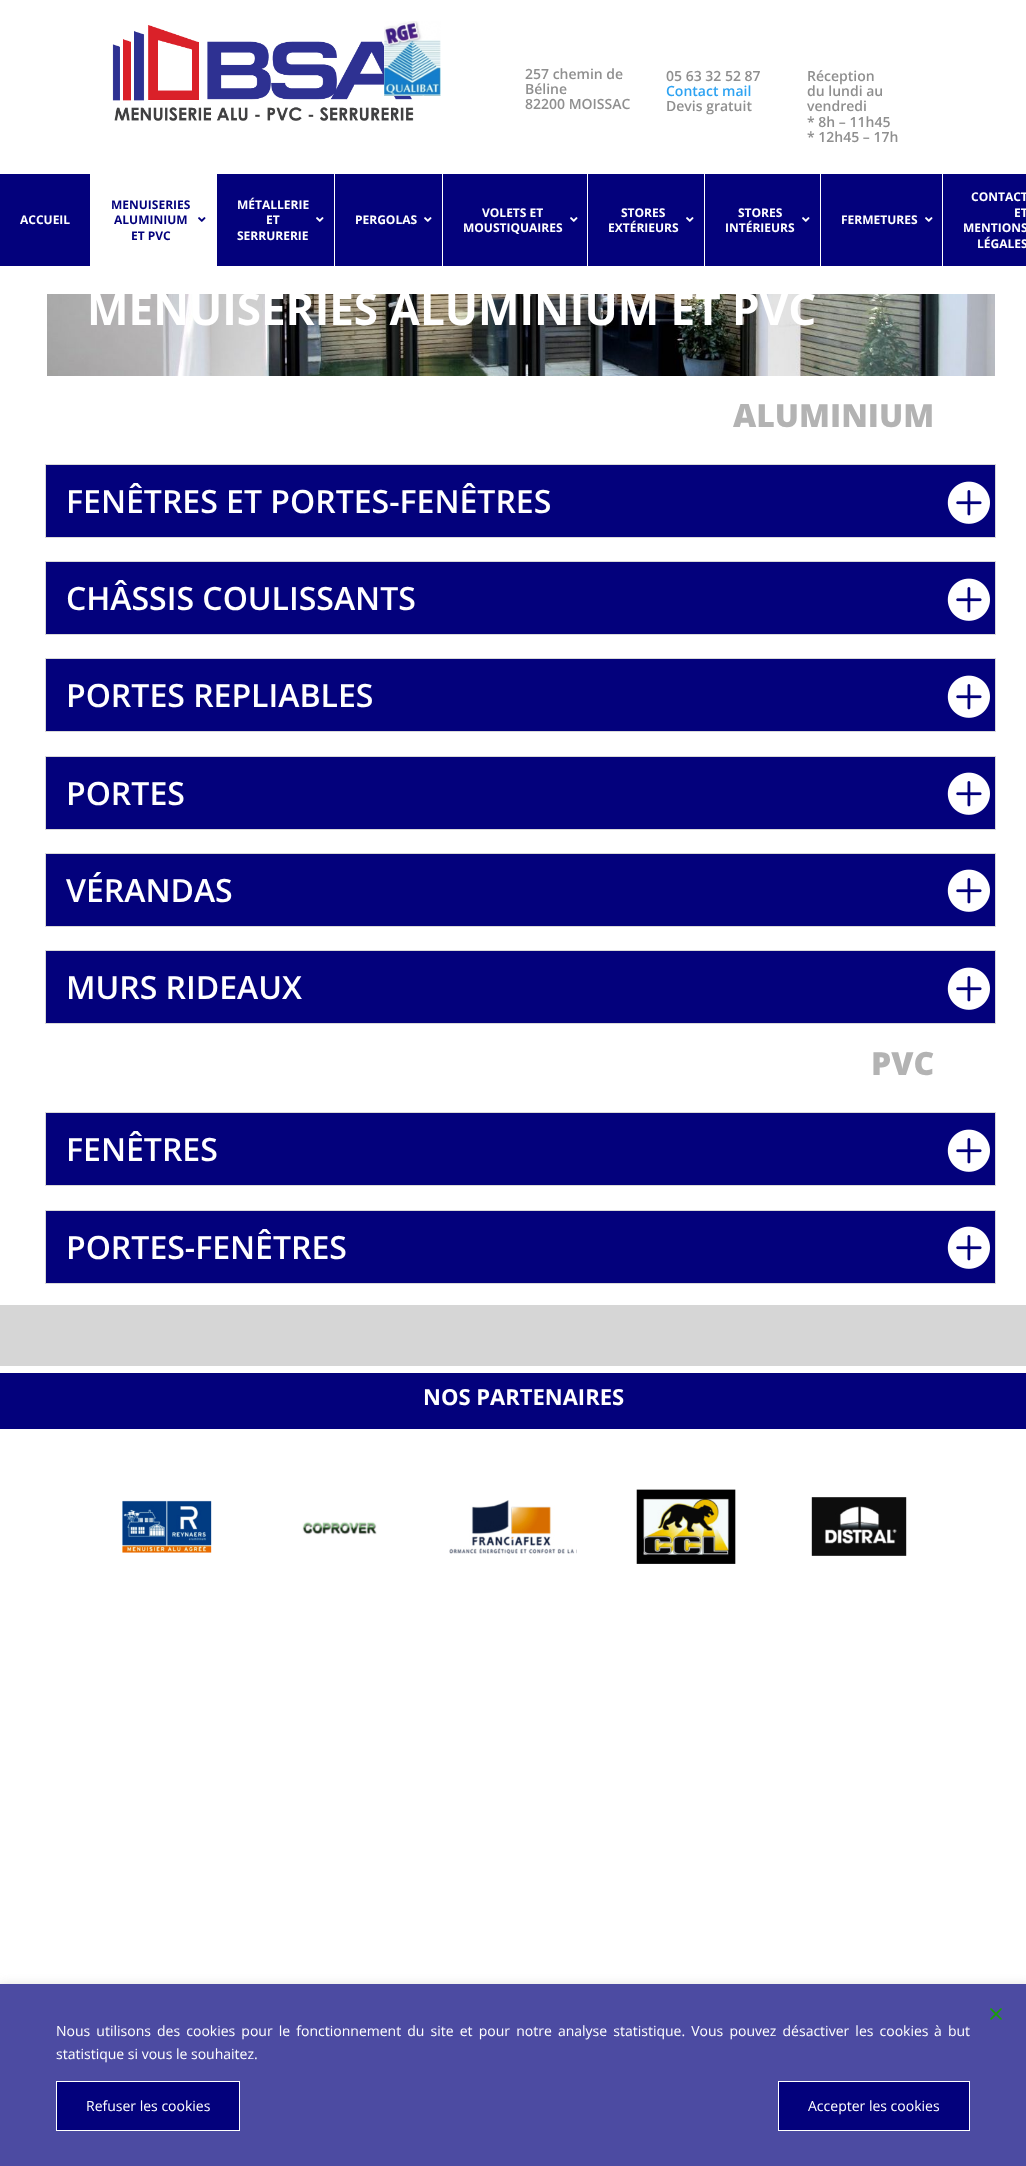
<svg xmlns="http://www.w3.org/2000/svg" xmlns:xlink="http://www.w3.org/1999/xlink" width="1026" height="2166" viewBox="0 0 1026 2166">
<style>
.cls-1{font:600 14px Open Sans;fill:#8f8f8f}
.cls-2{font:600 14px Open Sans;fill:#2ea3f2}
.cls-3{font:bold 12px Open Sans;fill:#ffffff}
.cls-4{font:bold 12px Open Sans;fill:#03017c}
.cls-5{font:bold 44px Open Sans;fill:#ffffff}
.cls-6{font:800 32px Open Sans;fill:#b3b3b3}
.cls-7{font:600 32px Open Sans;fill:#ffffff}
.cls-8{font:bold 22px Open Sans;fill:#ffffff}
.cls-9{font:14px Open Sans;fill:#ffffff}
</style>
<rect width="100%" height="100%" fill="#ffffff"/>
<image xlink:href="image1.png" x="112" y="25" width="302" height="96"/>
<image xlink:href="image0.png" x="384" y="21" width="57" height="75"/>
<rect fill="#03017c" x="0" y="174" width="1026" height="92"/>
<rect fill="#ffffff" x="90" y="174" width="127" height="92"/>
<image xlink:href="image2.png" x="198" y="217" width="8" height="5"/>
<image xlink:href="image3.png" x="316" y="217" width="8" height="5"/>
<rect fill="#ffffff" x="334" y="174" width="1" height="92"/>
<image xlink:href="image3.png" x="424" y="217" width="8" height="5"/>
<rect fill="#ffffff" x="442" y="174" width="1" height="92"/>
<image xlink:href="image3.png" x="570" y="217" width="8" height="5"/>
<rect fill="#ffffff" x="587" y="174" width="1" height="92"/>
<image xlink:href="image3.png" x="686" y="217" width="8" height="5"/>
<rect fill="#ffffff" x="704" y="174" width="1" height="92"/>
<image xlink:href="image3.png" x="802" y="217" width="8" height="5"/>
<rect fill="#ffffff" x="820" y="174" width="1" height="92"/>
<image xlink:href="image3.png" x="925" y="217" width="8" height="5"/>
<rect fill="#ffffff" x="942" y="174" width="1" height="92"/>
<rect fill="#d6d6d6" x="0" y="1305" width="1026" height="61"/>
<image xlink:href="image4.png" x="47" y="294" width="948" height="82"/>
<rect fill="#03017c" stroke="#d9d9d9" x="45.5" y="464.5" width="950" height="73"/>
<image xlink:href="image5.png" x="947" y="481" width="43" height="43"/>
<rect fill="#03017c" stroke="#d9d9d9" x="45.5" y="561.5" width="950" height="73"/>
<image xlink:href="image5.png" x="947" y="578" width="43" height="43"/>
<rect fill="#03017c" stroke="#d9d9d9" x="45.5" y="658.5" width="950" height="73"/>
<image xlink:href="image5.png" x="947" y="675" width="43" height="43"/>
<rect fill="#03017c" stroke="#d9d9d9" x="45.5" y="756.5" width="950" height="73"/>
<image xlink:href="image5.png" x="947" y="772" width="43" height="43"/>
<rect fill="#03017c" stroke="#d9d9d9" x="45.5" y="853.5" width="950" height="73"/>
<image xlink:href="image5.png" x="947" y="869" width="43" height="43"/>
<rect fill="#03017c" stroke="#d9d9d9" x="45.5" y="950.5" width="950" height="73"/>
<image xlink:href="image5.png" x="947" y="967" width="43" height="43"/>
<rect fill="#03017c" stroke="#d9d9d9" x="45.5" y="1112.5" width="950" height="73"/>
<image xlink:href="image5.png" x="947" y="1129" width="43" height="43"/>
<rect fill="#03017c" stroke="#d9d9d9" x="45.5" y="1210.5" width="950" height="73"/>
<image xlink:href="image5.png" x="947" y="1226" width="43" height="43"/>
<rect fill="#03017c" x="0" y="1373" width="1026" height="56"/>
<image xlink:href="image6.png" x="122" y="1500" width="90" height="53"/>
<image xlink:href="image7.png" x="302" y="1521" width="75" height="14"/>
<image xlink:href="image8.png" x="449" y="1500" width="128" height="54"/>
<image xlink:href="image9.png" x="636" y="1489" width="100" height="75"/>
<image xlink:href="image10.png" x="811" y="1497" width="96" height="59"/>
<rect fill="#dddddd" filter="blur(5.5px)" x="-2" y="1985" width="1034" height="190"/>
<rect fill="#4c4ba2" x="0" y="1984" width="1026" height="182"/>
<image xlink:href="image11.png" x="990" y="2008" width="12" height="12"/>
<rect fill="#03017c" stroke="#ffffff" x="56.5" y="2081.5" width="183" height="49"/>
<rect fill="#03017c" stroke="#ffffff" x="778.5" y="2081.5" width="191" height="49"/>
<text class="cls-1"><tspan x="525" y="79">257 chemin de</tspan><tspan x="525" y="94">Béline</tspan><tspan x="525" y="109">82200 MOISSAC</tspan></text>
<text class="cls-1" x="666" y="81">05 63 32 52 87</text>
<text class="cls-2" x="666" y="96">Contact mail</text>
<text class="cls-1" x="666" y="111">Devis gratuit</text>
<text class="cls-1"><tspan x="807" y="81">Réception</tspan><tspan x="807" y="96">du lundi au</tspan><tspan x="807" y="111">vendredi</tspan><tspan x="807" y="127">* 8h – 11h45</tspan><tspan x="807" y="142">* 12h45 – 17h</tspan></text>
<text class="cls-3" x="20" y="224">ACCUEIL</text>
<text class="cls-4" x="111" y="209">MENUISERIES</text>
<text class="cls-4" x="114" y="224">ALUMINIUM</text>
<text class="cls-4" x="131" y="240">ET PVC</text>
<text class="cls-3" x="237" y="209">MÉTALLERIE</text>
<text class="cls-3" x="266" y="224">ET</text>
<text class="cls-3" x="237" y="240">SERRURERIE</text>
<text class="cls-3" x="355" y="224">PERGOLAS</text>
<text class="cls-3" x="482" y="217">VOLETS ET</text>
<text class="cls-3" x="463" y="232">MOUSTIQUAIRES</text>
<text class="cls-3" x="621" y="217">STORES</text>
<text class="cls-3" x="608" y="232">EXTÉRIEURS</text>
<text class="cls-3" x="738" y="217">STORES</text>
<text class="cls-3" x="725" y="232">INTÉRIEURS</text>
<text class="cls-3" x="841" y="224">FERMETURES</text>
<text class="cls-3" x="971" y="201">CONTACT</text>
<text class="cls-3" x="1014" y="217">ET</text>
<text class="cls-3" x="963" y="232">MENTIONS</text>
<text class="cls-3" x="977" y="248">LÉGALES</text>
<text class="cls-5" x="87" y="325">MENUISERIES ALUMINIUM ET PVC</text>
<text class="cls-6" x="733" y="427">ALUMINIUM</text>
<text class="cls-7" x="66" y="513">FENÊTRES ET PORTES-FENÊTRES</text>
<text class="cls-7" x="66" y="610">CHÂSSIS COULISSANTS</text>
<text class="cls-7" x="66" y="707">PORTES REPLIABLES</text>
<text class="cls-7" x="66" y="805">PORTES</text>
<text class="cls-7" x="66" y="902">VÉRANDAS</text>
<text class="cls-7" x="66" y="999">MURS RIDEAUX</text>
<text class="cls-6" x="871" y="1075">PVC</text>
<text class="cls-7" x="66" y="1161">FENÊTRES</text>
<text class="cls-7" x="66" y="1259">PORTES-FENÊTRES</text>
<text class="cls-8" x="423" y="1405">NOS PARTENAIRES</text>
<text class="cls-9" x="56" y="2036" word-spacing="2.5">Nous utilisons des cookies pour le fonctionnement du site et pour notre analyse statistique. Vous pouvez désactiver les cookies</text>
<text class="cls-9" x="934" y="2036" word-spacing="2.5">à but</text>
<text class="cls-9" x="56" y="2059">statistique si vous le souhaitez.</text>
<text class="cls-9" x="86" y="2111">Refuser les cookies</text>
<text class="cls-9" x="808" y="2111">Accepter les cookies</text>
</svg>
